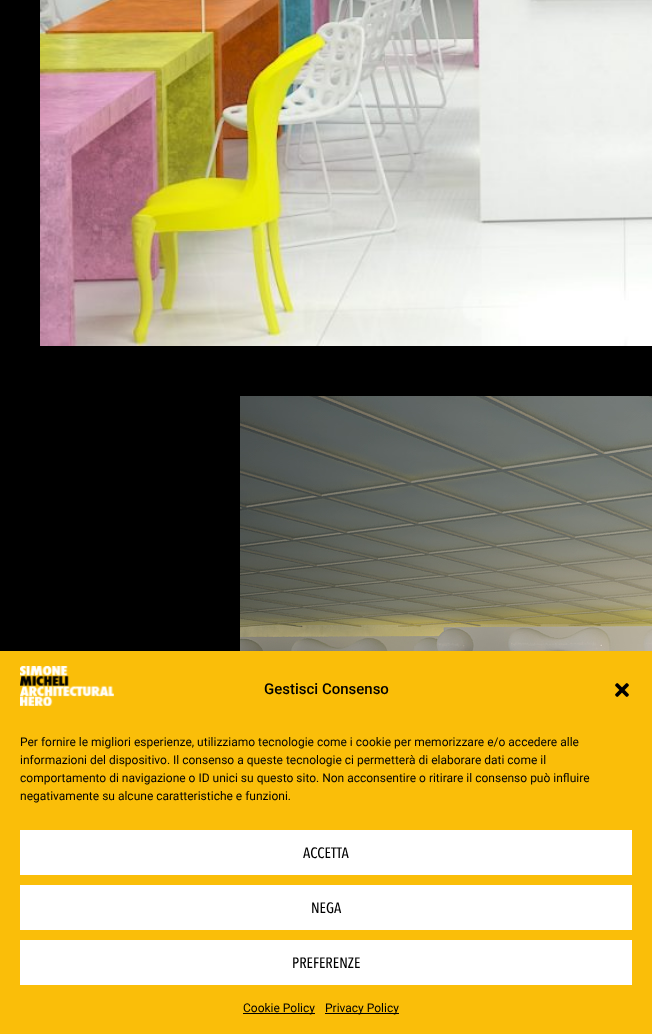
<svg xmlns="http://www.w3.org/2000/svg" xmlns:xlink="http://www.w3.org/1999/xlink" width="652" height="1034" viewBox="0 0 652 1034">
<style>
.cls-1{font:500 15px Roboto;fill:#000000}
.cls-2{font:12px Roboto;fill:#000000}
.cls-3{font:500 15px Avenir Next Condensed;fill:#000000}
</style>
<rect width="100%" height="100%" fill="#000000"/>
<image xlink:href="image0.png" x="40" y="0" width="612" height="346"/>
<image xlink:href="image1.png" x="240" y="396" width="412" height="255"/>
<rect fill="#fabe09" x="0" y="651" width="652" height="383"/>
<image xlink:href="image2.png" x="20" y="666" width="94" height="40"/>
<image xlink:href="image3.png" x="615" y="683" width="14" height="14"/>
<rect fill="#ffffff" x="20" y="830" width="612" height="45"/>
<rect fill="#ffffff" x="20" y="885" width="612" height="45"/>
<rect fill="#ffffff" x="20" y="940" width="612" height="45"/>
<rect fill="#000000" x="243" y="1013" width="72" height="1"/>
<rect fill="#000000" x="325" y="1013" width="74" height="1"/>
<text class="cls-1" x="264" y="694">Gestisci Consenso</text>
<text class="cls-2"><tspan x="20" y="746">Per fornire le migliori esperienze, utilizziamo tecnologie come i cookie per memorizzare e/o accedere alle</tspan><tspan x="20" y="764">informazioni del dispositivo. Il consenso a queste tecnologie ci permetterà di elaborare dati come il</tspan><tspan x="20" y="782">comportamento di navigazione o ID unici su questo sito. Non acconsentire o ritirare il consenso può influire</tspan><tspan x="20" y="800">negativamente su alcune caratteristiche e funzioni.</tspan></text>
<text class="cls-3" x="303" y="858">ACCETTA</text>
<text class="cls-3" x="311" y="913">NEGA</text>
<text class="cls-3" x="292" y="968">PREFERENZE</text>
<text class="cls-2" x="243" y="1012">Cookie Policy</text>
<text class="cls-2" x="325" y="1012">Privacy Policy</text>
</svg>
